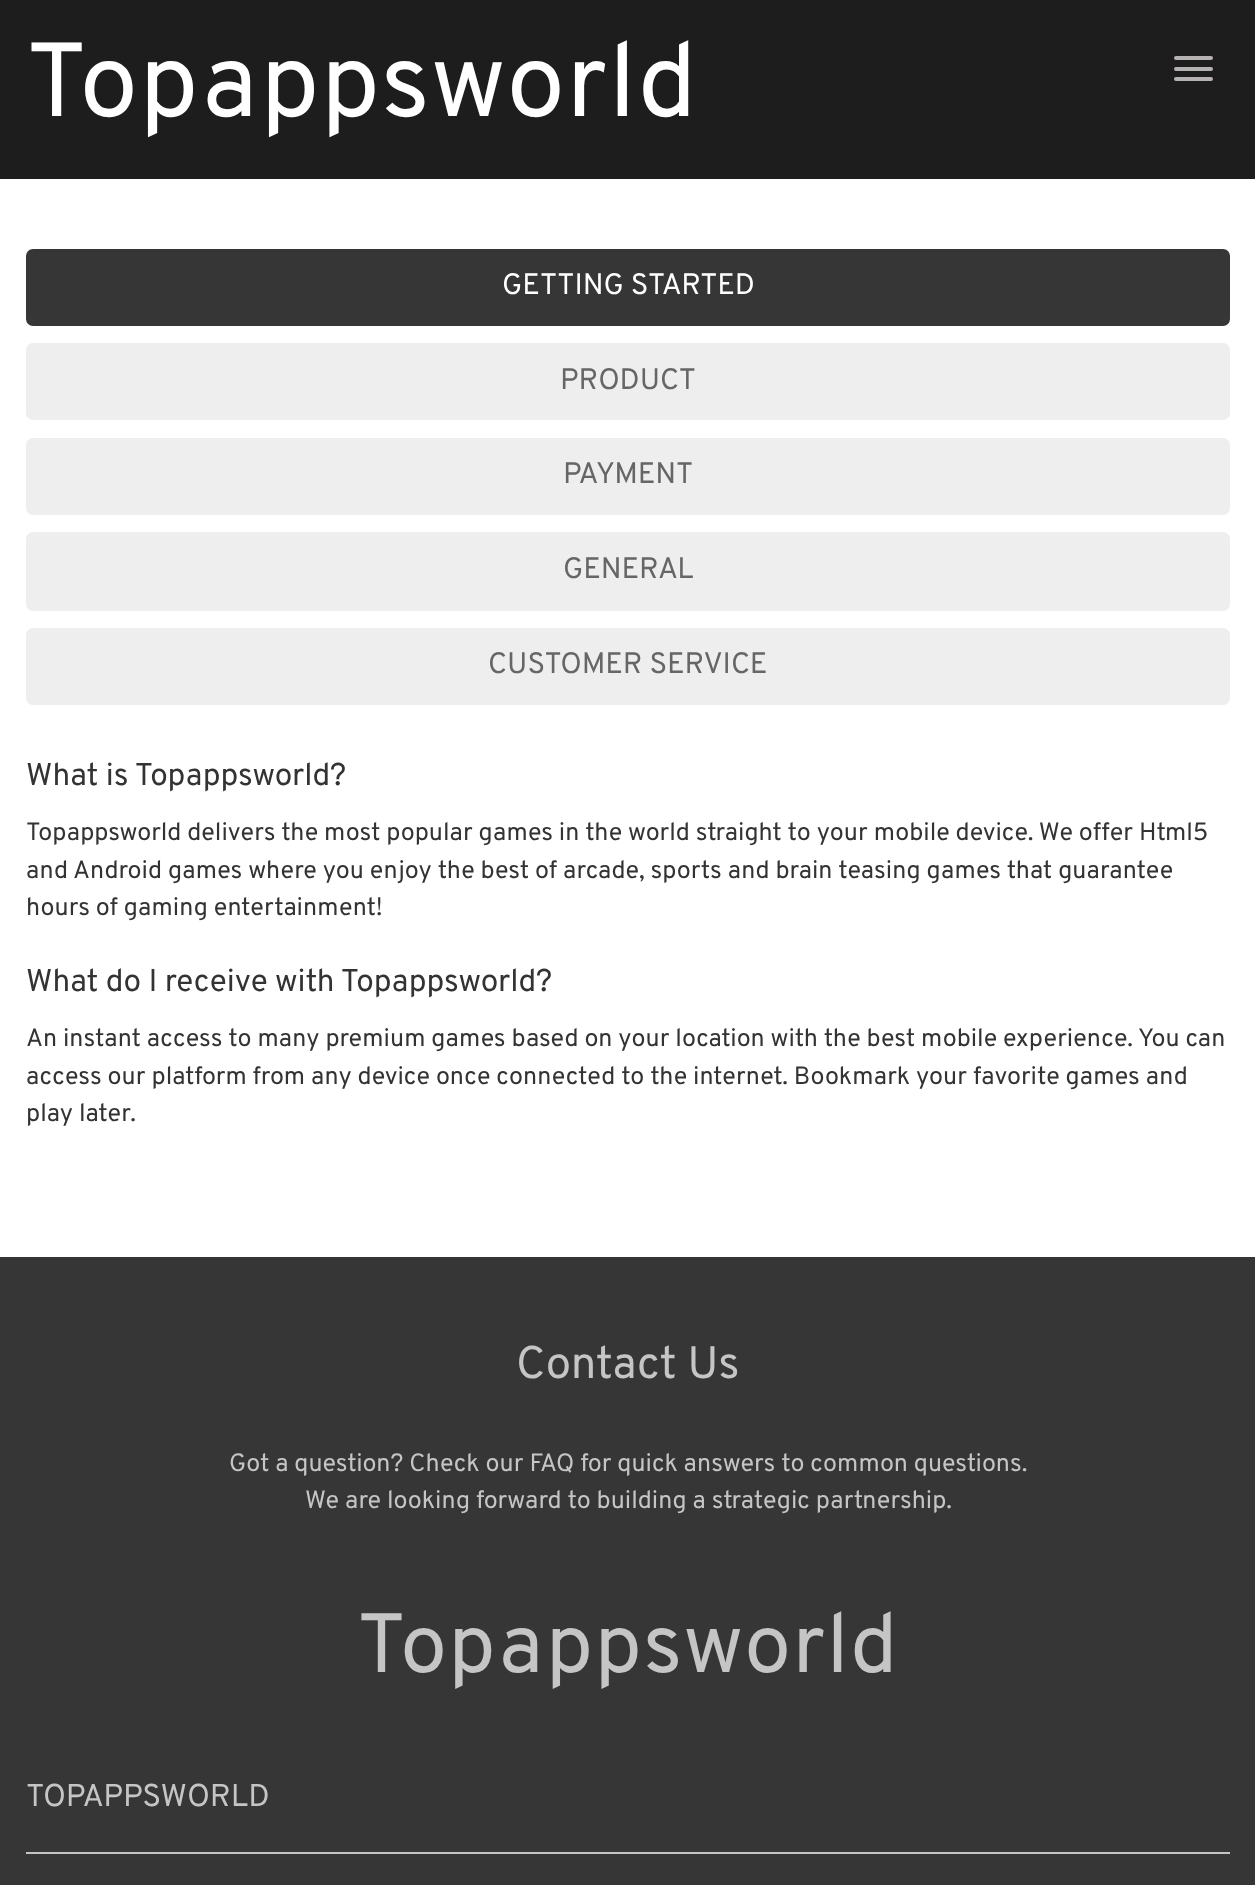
<svg xmlns="http://www.w3.org/2000/svg" xmlns:xlink="http://www.w3.org/1999/xlink" width="1255" height="1885" viewBox="0 0 1255 1885">
<style>
.cls-1{font:105px Overpass;letter-spacing:1.75px;fill:#ffffff}
.cls-2{font:29.5px Overpass;fill:#ffffff}
.cls-3{font:29.5px Overpass;fill:#666666}
.cls-4{font:31.5px Overpass;fill:#333333}
.cls-5{font:25.05px Overpass;fill:#333333}
.cls-6{font:45.5px Overpass;fill:#c5c5c5}
.cls-7{font:25.05px Overpass;fill:#c5c5c5}
.cls-8{font:84px Overpass;letter-spacing:1.75px;fill:#c5c5c5}
.cls-9{font:31.5px Overpass;fill:#c5c5c5}
</style>
<rect width="100%" height="100%" fill="#ffffff"/>
<rect fill="#1d1d1d" x="0" y="0" width="1255" height="179"/>
<rect fill="#b7b2b2" x="1174" y="56" width="39" height="4" rx="2"/>
<rect fill="#b7b2b2" x="1174" y="67" width="39" height="4" rx="2"/>
<rect fill="#b7b2b2" x="1174" y="77" width="39" height="4" rx="2"/>
<rect fill="#363636" x="26" y="249" width="1204" height="77" rx="7"/>
<rect fill="#eeeeee" x="26" y="343" width="1204" height="77" rx="7"/>
<rect fill="#eeeeee" x="26" y="438" width="1204" height="77" rx="7"/>
<rect fill="#eeeeee" x="26" y="532" width="1204" height="79" rx="7"/>
<rect fill="#eeeeee" x="26" y="628" width="1204" height="77" rx="7"/>
<rect fill="#363636" x="0" y="1257" width="1255" height="628"/>
<rect fill="#c5c5c5" x="26" y="1852" width="1204" height="2"/>
<text class="cls-1" x="26" y="116">Topappsworld</text>
<text class="cls-2" x="502" y="294">GETTING STARTED</text>
<text class="cls-3" x="560" y="389">PRODUCT</text>
<text class="cls-3" x="563" y="483">PAYMENT</text>
<text class="cls-3" x="563" y="578">GENERAL</text>
<text class="cls-3" x="488" y="673">CUSTOMER SERVICE</text>
<text class="cls-4" x="26" y="785">What is Topappsworld?</text>
<text class="cls-5"><tspan x="26" y="840">Topappsworld delivers the most popular games in the world straight to your mobile device. We offer Html5</tspan><tspan x="26" y="878">and Android games where you enjoy the best of arcade, sports and brain teasing games that guarantee</tspan><tspan x="26" y="915">hours of gaming entertainment!</tspan></text>
<text class="cls-4" x="26" y="991">What do I receive with Topappsworld?</text>
<text class="cls-5"><tspan x="26" y="1046">An instant access to many premium games based on your location with the best mobile experience. You can</tspan><tspan x="26" y="1084">access our platform from any device once connected to the internet. Bookmark your favorite games and</tspan><tspan x="26" y="1121">play later.</tspan></text>
<text class="cls-6" x="516" y="1378">Contact Us</text>
<text class="cls-7" x="229" y="1471">Got a question? Check our FAQ for quick answers to common questions.</text>
<text class="cls-7" x="305" y="1508">We are looking forward to building a strategic partnership.</text>
<text class="cls-8" x="357" y="1672">Topappsworld</text>
<text class="cls-9" x="26" y="1806">TOPAPPSWORLD</text>
</svg>
